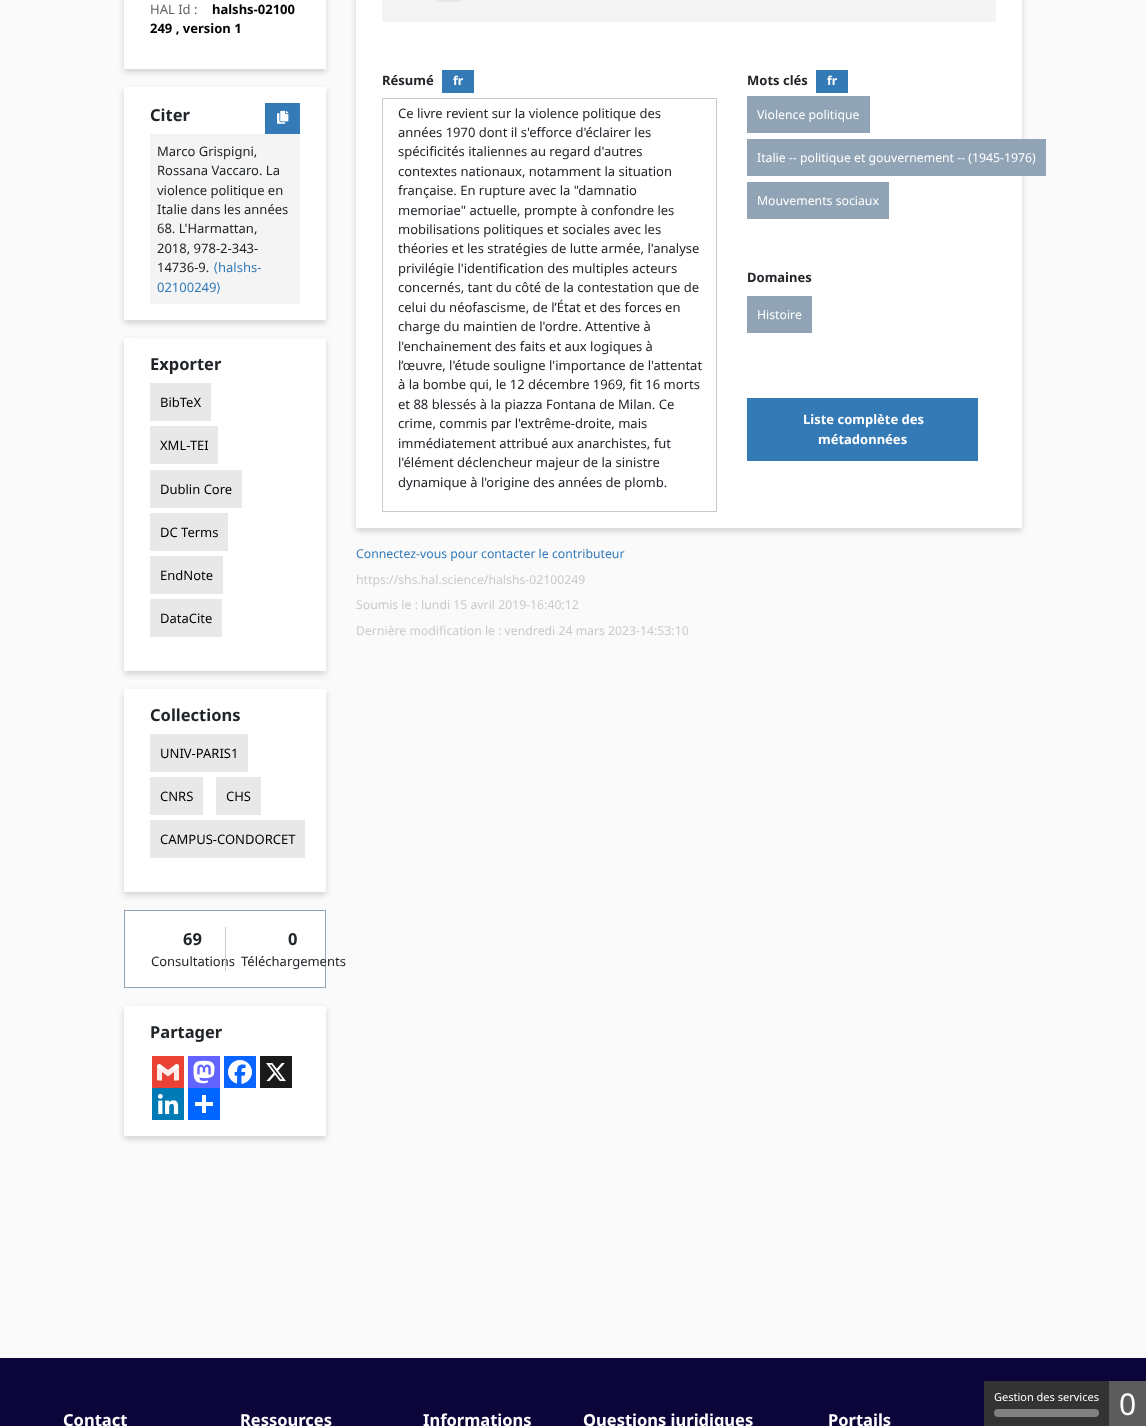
<svg xmlns="http://www.w3.org/2000/svg" xmlns:xlink="http://www.w3.org/1999/xlink" width="1146" height="1426" viewBox="0 0 1146 1426">
<style>
.cls-1{font:13px Noto Sans;fill:#646464}
.cls-2{font:bold 13px Noto Sans;fill:#000000}
.cls-3{font:bold 16.5px Noto Sans;fill:#212529}
.cls-4{font:13px Noto Sans;fill:#212529}
.cls-5{font:13px DejaVu Sans;fill:#337ab7}
.cls-6{font:13px Noto Sans;fill:#337ab7}
.cls-7{font:13px Noto Sans;fill:#000000}
.cls-8{font:bold 13px Noto Sans;fill:#212529}
.cls-9{font:bold 12.25px Noto Sans;fill:#ffffff}
.cls-10{font:12.25px Noto Sans;fill:#ffffff}
.cls-11{font:bold 13px Noto Sans;fill:#ffffff}
.cls-12{font:12.25px Noto Sans;fill:#337ab7}
.cls-13{font:12.25px Noto Sans;fill:#cacaca}
.cls-14{font:11px Noto Sans;fill:#ffffff}
.cls-15{font:30px Noto Sans;fill:#ffffff}
.cls-16{font:bold 16.5px Noto Sans;fill:#ffffff}
</style>
<rect width="100%" height="100%" fill="#fafafa"/>
<rect fill="#000000" fill-opacity="0.16" filter="blur(3px)" x="124" y="-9" width="202" height="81"/>
<rect fill="#ffffff" x="124" y="0" width="202" height="69"/>
<rect fill="#000000" fill-opacity="0.16" filter="blur(3px)" x="124" y="90" width="202" height="233"/>
<rect fill="#ffffff" x="124" y="87" width="202" height="233"/>
<rect fill="#337ab7" x="265" y="103" width="35" height="31"/>
<image xlink:href="image0.png" x="277" y="110" width="12" height="14"/>
<rect fill="#f4f4f4" x="150" y="134" width="150" height="170"/>
<rect fill="#000000" fill-opacity="0.16" filter="blur(3px)" x="124" y="341" width="202" height="333"/>
<rect fill="#ffffff" x="124" y="338" width="202" height="333"/>
<rect fill="#e8e8e8" x="150" y="383" width="61" height="38"/>
<rect fill="#e8e8e8" x="150" y="426" width="68" height="38"/>
<rect fill="#e8e8e8" x="150" y="470" width="92" height="38"/>
<rect fill="#e8e8e8" x="150" y="513" width="78" height="38"/>
<rect fill="#e8e8e8" x="150" y="556" width="73" height="38"/>
<rect fill="#e8e8e8" x="150" y="599" width="72" height="38"/>
<rect fill="#000000" fill-opacity="0.16" filter="blur(3px)" x="124" y="692" width="202" height="203"/>
<rect fill="#ffffff" x="124" y="689" width="202" height="203"/>
<rect fill="#e8e8e8" x="150" y="734" width="98" height="38"/>
<rect fill="#e8e8e8" x="150" y="777" width="53" height="38"/>
<rect fill="#e8e8e8" x="216" y="777" width="45" height="38"/>
<rect fill="#e8e8e8" x="150" y="820" width="155" height="38"/>
<rect fill="#ffffff" stroke="#90a4b6" x="124.5" y="910.5" width="201" height="77"/>
<rect fill="#000000" fill-opacity="0.16" filter="blur(3px)" x="124" y="1009" width="202" height="130"/>
<rect fill="#ffffff" x="124" y="1006" width="202" height="130"/>
<rect fill="#ea4335" x="152" y="1056" width="32" height="32"/>
<image xlink:href="image1.png" x="157" y="1064" width="22" height="17"/>
<rect fill="#6364ff" x="188" y="1056" width="32" height="32"/>
<image xlink:href="image2.png" x="193" y="1060" width="22" height="24"/>
<rect fill="#0866ff" x="224" y="1056" width="32" height="32"/>
<image xlink:href="image3.png" x="228" y="1060" width="24" height="24"/>
<rect fill="#1a1a1a" x="260" y="1056" width="32" height="32"/>
<image xlink:href="image4.png" x="266" y="1063" width="20" height="19"/>
<rect fill="#007bb5" x="152" y="1088" width="32" height="32"/>
<image xlink:href="image5.png" x="157" y="1093" width="22" height="22"/>
<rect fill="#0166ff" x="188" y="1088" width="32" height="32"/>
<rect fill="#ffffff" x="202" y="1095" width="4" height="18"/>
<rect fill="#ffffff" x="195" y="1102" width="18" height="4"/>
<rect fill="#000000" fill-opacity="0.16" filter="blur(3px)" x="356" y="-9" width="666" height="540"/>
<rect fill="#ffffff" x="356" y="0" width="666" height="528"/>
<rect fill="#f4f4f4" x="382" y="0" width="614" height="22"/>
<rect fill="#e8e8e8" x="437" y="0" width="24" height="2"/>
<rect fill="#337ab7" x="442" y="70" width="32" height="23"/>
<rect fill="none" stroke="#cacaca" x="382.5" y="98.5" width="334" height="413"/>
<rect fill="#337ab7" x="816" y="70" width="32" height="23"/>
<rect fill="#90a4b6" x="747" y="96" width="123" height="37"/>
<rect fill="#90a4b6" x="747" y="139" width="299" height="37"/>
<rect fill="#90a4b6" x="747" y="182" width="142" height="37"/>
<rect fill="#90a4b6" x="747" y="296" width="65" height="37"/>
<rect fill="#337ab7" x="747" y="398" width="231" height="63"/>
<rect fill="#0c053a" x="0" y="1358" width="1146" height="68"/>
<rect fill="#333333" x="984" y="1381" width="125" height="45"/>
<rect fill="#808080" x="994" y="1409" width="105" height="8" rx="4"/>
<rect fill="#5c5c5c" x="1109" y="1381" width="37" height="45"/>
<text class="cls-1" x="150" y="14">HAL Id :</text>
<text class="cls-2" x="212" y="14">halshs-02100</text>
<text class="cls-2" x="150" y="33">249 , version 1</text>
<text class="cls-3" x="150" y="121">Citer</text>
<text class="cls-4"><tspan x="157" y="156">Marco Grispigni,</tspan><tspan x="157" y="175">Rossana Vaccaro. La</tspan><tspan x="157" y="195">violence politique en</tspan><tspan x="157" y="214">Italie dans les années</tspan><tspan x="157" y="233">68. L'Harmattan,</tspan><tspan x="157" y="253">2018, 978-2-343-</tspan><tspan x="157" y="272">14736-9.</tspan></text>
<text class="cls-5" x="213" y="272">⟨</text>
<text class="cls-6" x="218" y="272">halshs-</text>
<text class="cls-6" x="157" y="292">02100249</text>
<text class="cls-5" x="216" y="292">⟩</text>
<text class="cls-3" x="150" y="370">Exporter</text>
<text class="cls-7" x="160" y="407">BibTeX</text>
<text class="cls-7" x="160" y="450">XML-TEI</text>
<text class="cls-7" x="160" y="494">Dublin Core</text>
<text class="cls-7" x="160" y="537">DC Terms</text>
<text class="cls-7" x="160" y="580">EndNote</text>
<text class="cls-7" x="160" y="623">DataCite</text>
<text class="cls-3" x="150" y="721">Collections</text>
<text class="cls-7" x="160" y="758">UNIV-PARIS1</text>
<text class="cls-7" x="160" y="801">CNRS</text>
<text class="cls-7" x="226" y="801">CHS</text>
<text class="cls-7" x="160" y="844">CAMPUS-CONDORCET</text>
<text class="cls-3" x="183" y="945">69</text>
<text class="cls-4" x="151" y="966">Consultations</text>
<rect fill="#cacaca" x="225" y="927" width="1" height="44"/>
<text class="cls-3" x="288" y="945">0</text>
<text class="cls-4" x="241" y="966">Téléchargements</text>
<text class="cls-3" x="150" y="1038">Partager</text>
<text class="cls-8" x="382" y="85">Résumé</text>
<text class="cls-9" x="453" y="85">fr</text>
<text class="cls-4"><tspan x="398" y="118">Ce livre revient sur la violence politique des</tspan><tspan x="398" y="137">années 1970 dont il s'efforce d'éclairer les</tspan><tspan x="398" y="156">spécificités italiennes au regard d'autres</tspan><tspan x="398" y="176">contextes nationaux, notamment la situation</tspan><tspan x="398" y="195">française. En rupture avec la "damnatio</tspan><tspan x="398" y="215">memoriae" actuelle, prompte à confondre les</tspan><tspan x="398" y="234">mobilisations politiques et sociales avec les</tspan><tspan x="398" y="253">théories et les stratégies de lutte armée, l'analyse</tspan><tspan x="398" y="273">privilégie l'identification des multiples acteurs</tspan><tspan x="398" y="292">concernés, tant du côté de la contestation que de</tspan><tspan x="398" y="312">celui du néofascisme, de l’État et des forces en</tspan><tspan x="398" y="331">charge du maintien de l'ordre. Attentive à</tspan><tspan x="398" y="351">l'enchainement des faits et aux logiques à</tspan><tspan x="398" y="370">l’œuvre, l'étude souligne l'importance de l'attentat</tspan><tspan x="398" y="389">à la bombe qui, le 12 décembre 1969, fit 16 morts</tspan><tspan x="398" y="409">et 88 blessés à la piazza Fontana de Milan. Ce</tspan><tspan x="398" y="428">crime, commis par l'extrême-droite, mais</tspan><tspan x="398" y="448">immédiatement attribué aux anarchistes, fut</tspan><tspan x="398" y="467">l'élément déclencheur majeur de la sinistre</tspan><tspan x="398" y="487">dynamique à l'origine des années de plomb.</tspan></text>
<text class="cls-8" x="747" y="85">Mots clés</text>
<text class="cls-9" x="827" y="85">fr</text>
<text class="cls-10" x="757" y="119">Violence politique</text>
<text class="cls-10" x="757" y="162">Italie -- politique et gouvernement -- (1945-1976)</text>
<text class="cls-10" x="757" y="205">Mouvements sociaux</text>
<text class="cls-8" x="747" y="282">Domaines</text>
<text class="cls-10" x="757" y="319">Histoire</text>
<text class="cls-11" x="803" y="424">Liste complète des</text>
<text class="cls-11" x="818" y="444">métadonnées</text>
<text class="cls-12" x="356" y="558">Connectez-vous pour contacter le contributeur</text>
<text class="cls-13" x="356" y="584">https://shs.hal.science/halshs-02100249</text>
<text class="cls-13" x="356" y="609">Soumis le : lundi 15 avril 2019-16:40:12</text>
<text class="cls-13" x="356" y="635">Dernière modification le : vendredi 24 mars 2023-14:53:10</text>
<text class="cls-14" x="994" y="1401">Gestion des services</text>
<text class="cls-15" x="1119" y="1415">0</text>
<text class="cls-16" x="63" y="1426">Contact</text>
<text class="cls-16" x="240" y="1426">Ressources</text>
<text class="cls-16" x="423" y="1426">Informations</text>
<text class="cls-16" x="583" y="1426">Questions juridiques</text>
<text class="cls-16" x="828" y="1426">Portails</text>
</svg>
